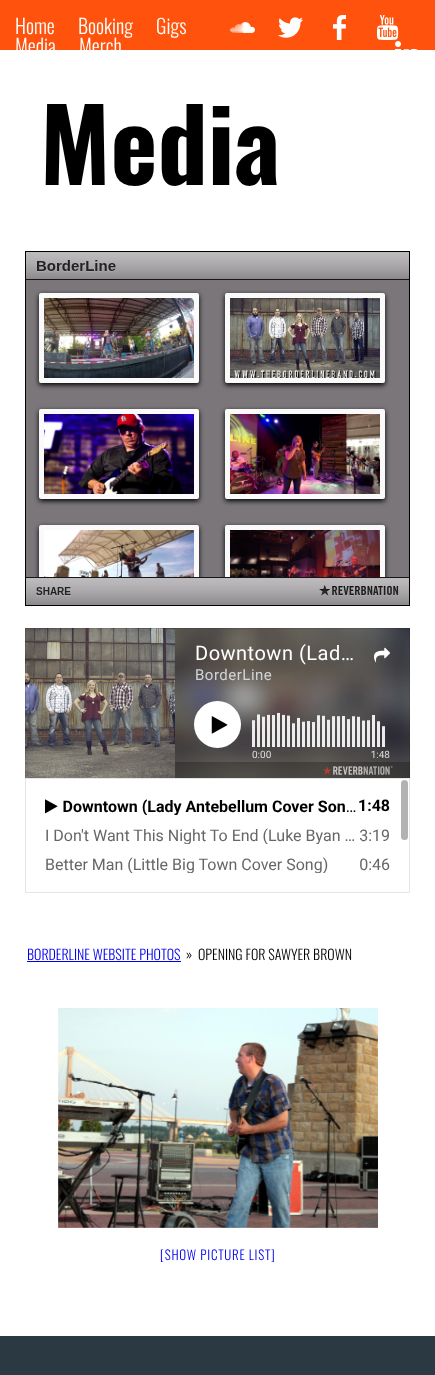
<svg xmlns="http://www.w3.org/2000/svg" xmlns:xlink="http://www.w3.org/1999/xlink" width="435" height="1375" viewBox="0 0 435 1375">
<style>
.cls-1{font:300 20px Oswald;fill:#ffffff}
.cls-2{font:bold 100px Oswald;fill:#000000}
.cls-3{font:300 14px Oswald;fill:#0000ee}
.cls-4{font:300 14px Oswald;fill:#000000}
.cls-5{font:300 13px Oswald;letter-spacing:0.75px;fill:#0000ee}
</style>
<rect width="100%" height="100%" fill="#ffffff"/>
<rect fill="#ff530d" x="0" y="0" width="435" height="50"/>
<image xlink:href="image0.png" x="230" y="22" width="25" height="11"/>
<image xlink:href="image1.png" x="278" y="17" width="25" height="21"/>
<image xlink:href="image2.png" x="333" y="15" width="13" height="25"/>
<image xlink:href="image3.png" x="376" y="15" width="23" height="25"/>
<image xlink:href="image4.png" x="395" y="41" width="23" height="9"/>
<image xlink:href="image5.png" x="25" y="251" width="385" height="355"/>
<image xlink:href="image6.png" x="25" y="628" width="385" height="265"/>
<rect fill="#0000ee" x="27" y="961" width="154" height="1"/>
<image xlink:href="image7.png" x="58" y="1008" width="320" height="220"/>
<rect fill="#2b3a42" x="0" y="1336" width="435" height="39"/>
<text class="cls-1" x="15" y="34">Home</text>
<text class="cls-1" x="78" y="34">Booking</text>
<text class="cls-1" x="156" y="34">Gigs</text>
<text class="cls-1" x="15" y="54">Media</text>
<text class="cls-1" x="79" y="54">Merch</text>
<text class="cls-2" x="40" y="185">Media</text>
<text class="cls-3" x="27" y="960">BORDERLINE WEBSITE PHOTOS</text>
<text class="cls-4" x="186" y="960">»</text>
<text class="cls-4" x="198" y="960">OPENING FOR SAWYER BROWN</text>
<text class="cls-5" x="160" y="1260">[SHOW PICTURE LIST]</text>
</svg>
